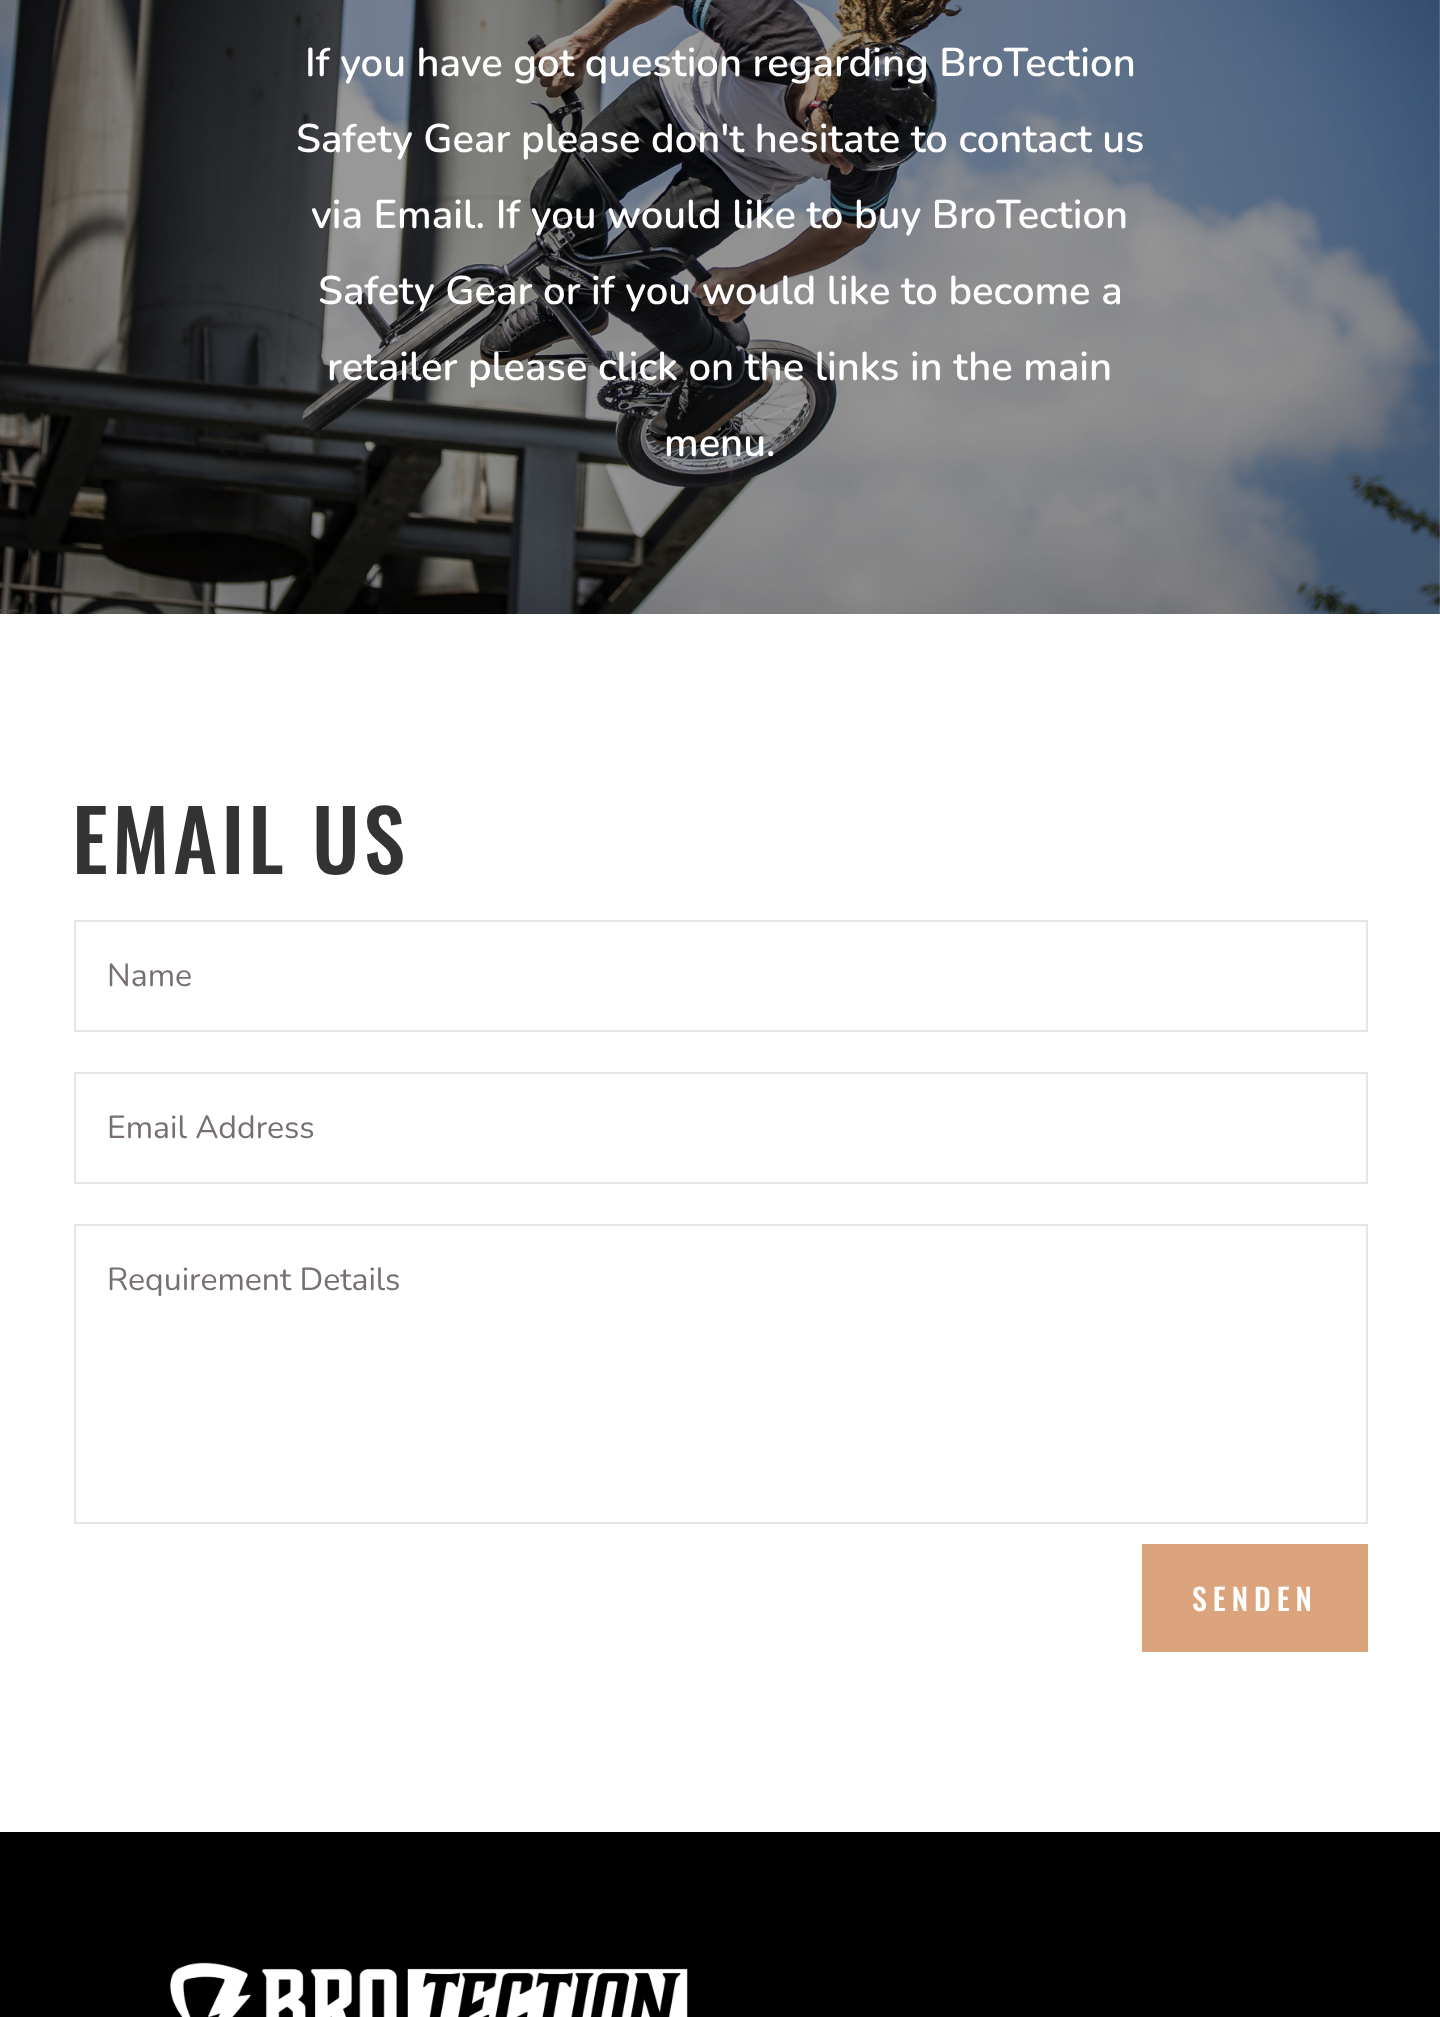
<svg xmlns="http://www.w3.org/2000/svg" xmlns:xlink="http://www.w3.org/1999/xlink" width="1440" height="2017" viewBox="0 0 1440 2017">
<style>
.cls-1{font:200 40px Nunito;fill:#ffffff}
.cls-2{font:500 84px Oswald;letter-spacing:4px;fill:#333333}
.cls-3{font:200 32px 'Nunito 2';fill:#787070}
.cls-4{font:500 30px Oswald;letter-spacing:6px;fill:#ffffff}
</style>
<rect width="100%" height="100%" fill="#ffffff"/>
<image xlink:href="image0.png" x="0" y="0" width="1440" height="614"/>
<rect fill="none" stroke="#e6e6e6" stroke-width="2" x="75" y="921" width="1292" height="110"/>
<rect fill="none" stroke="#e6e6e6" stroke-width="2" x="75" y="1073" width="1292" height="110"/>
<rect fill="none" stroke="#e6e6e6" stroke-width="2" x="75" y="1225" width="1292" height="298"/>
<rect fill="#dca47d" x="1142" y="1544" width="226" height="108"/>
<rect fill="#000000" x="0" y="1832" width="1440" height="185"/>
<image xlink:href="image1.png" x="170" y="1962" width="518" height="55"/>
<text class="cls-1" x="305" y="76">If you have got question regarding BroTection</text>
<text class="cls-1" x="296" y="152">Safety Gear please don't hesitate to contact us</text>
<text class="cls-1" x="311" y="228">via Email. If you would like to buy BroTection</text>
<text class="cls-1" x="318" y="304">Safety Gear or if you would like to become a</text>
<text class="cls-1" x="327" y="380">retailer please click on the links in the main</text>
<text class="cls-1" x="664" y="456">menu.</text>
<text class="cls-2" x="72" y="874">EMAIL US</text>
<text class="cls-3" x="107" y="986">Name</text>
<text class="cls-3" x="107" y="1138">Email Address</text>
<text class="cls-3" x="107" y="1290">Requirement Details</text>
<text class="cls-4" x="1192" y="1611">SENDEN</text>
</svg>
